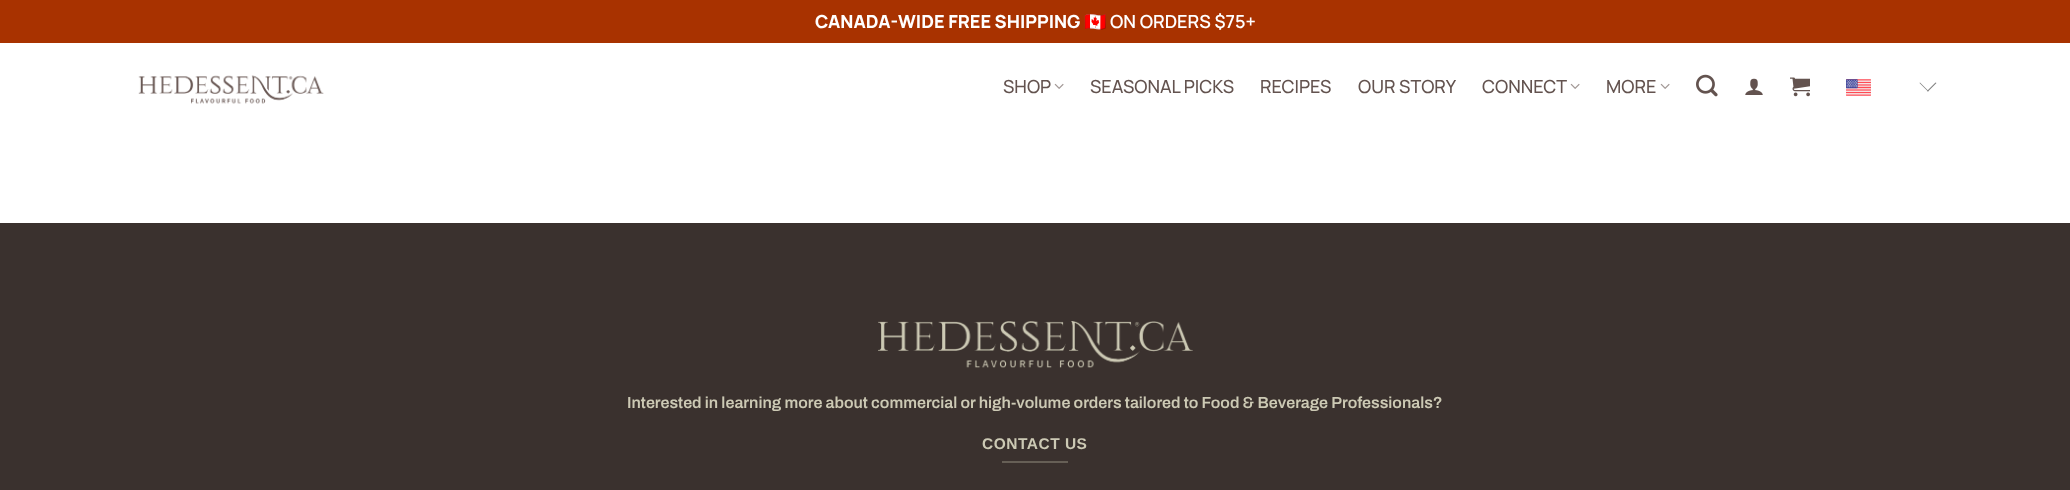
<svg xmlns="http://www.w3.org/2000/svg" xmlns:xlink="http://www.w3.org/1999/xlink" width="2070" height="490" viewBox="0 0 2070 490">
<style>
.cls-1{font:800 18px Manrope;fill:#ffffff}
.cls-2{font:bold 18px Noto Color Emoji;fill:#ffffff}
.cls-3{font:600 18px Manrope;fill:#ffffff}
.cls-4{font:500 18px Manrope;fill:#63534f}
.cls-5{font:600 16px Archivo;fill:#ccc9b4}
.cls-6{font:bold 15.5px Liberation Sans;letter-spacing:0.5px;fill:#ccc9b4}
</style>
<rect width="100%" height="100%" fill="#ffffff"/>
<rect fill="#a83200" x="0" y="0" width="2070" height="43"/>
<image xlink:href="image0.png" x="138" y="75" width="186" height="29"/>
<image xlink:href="image1.png" x="1054" y="83" width="10" height="6"/>
<image xlink:href="image1.png" x="1570" y="83" width="10" height="6"/>
<image xlink:href="image1.png" x="1660" y="83" width="10" height="6"/>
<image xlink:href="image2.png" x="1696" y="74" width="22" height="23"/>
<image xlink:href="image3.png" x="1745" y="78" width="18" height="17"/>
<image xlink:href="image4.png" x="1790" y="77" width="20" height="20"/>
<image xlink:href="image5.png" x="1846" y="79" width="25" height="17"/>
<path fill="#808080" d="M1935.5 82.5L1936.5 83L1928 91.5L1927 91Z"/>
<path fill="#808080" d="M1920 82.5L1928.5 91L1928 91.5L1919.5 83Z"/>
<rect fill="#3a312e" x="0" y="223" width="2070" height="267"/>
<image xlink:href="image6.png" x="878" y="321" width="315" height="47"/>
<rect fill="#665f56" x="1002" y="461" width="66" height="2"/>
<text class="cls-1" x="815" y="28">CANADA-WIDE FREE SHIPPING</text>
<text class="cls-2" x="1084" y="28">🇨🇦</text>
<text class="cls-3" x="1110" y="28">ON ORDERS $75+</text>
<text class="cls-4" x="1003" y="93">SHOP</text>
<text class="cls-4" x="1090" y="93">SEASONAL PICKS</text>
<text class="cls-4" x="1260" y="93">RECIPES</text>
<text class="cls-4" x="1358" y="93">OUR STORY</text>
<text class="cls-4" x="1482" y="93">CONNECT</text>
<text class="cls-4" x="1606" y="93">MORE</text>
<text class="cls-5" x="627" y="408">Interested in learning more about commercial or high-volume orders tailored to Food &amp; Beverage Professionals?</text>
<text class="cls-6" x="982" y="449">CONTACT US</text>
</svg>
